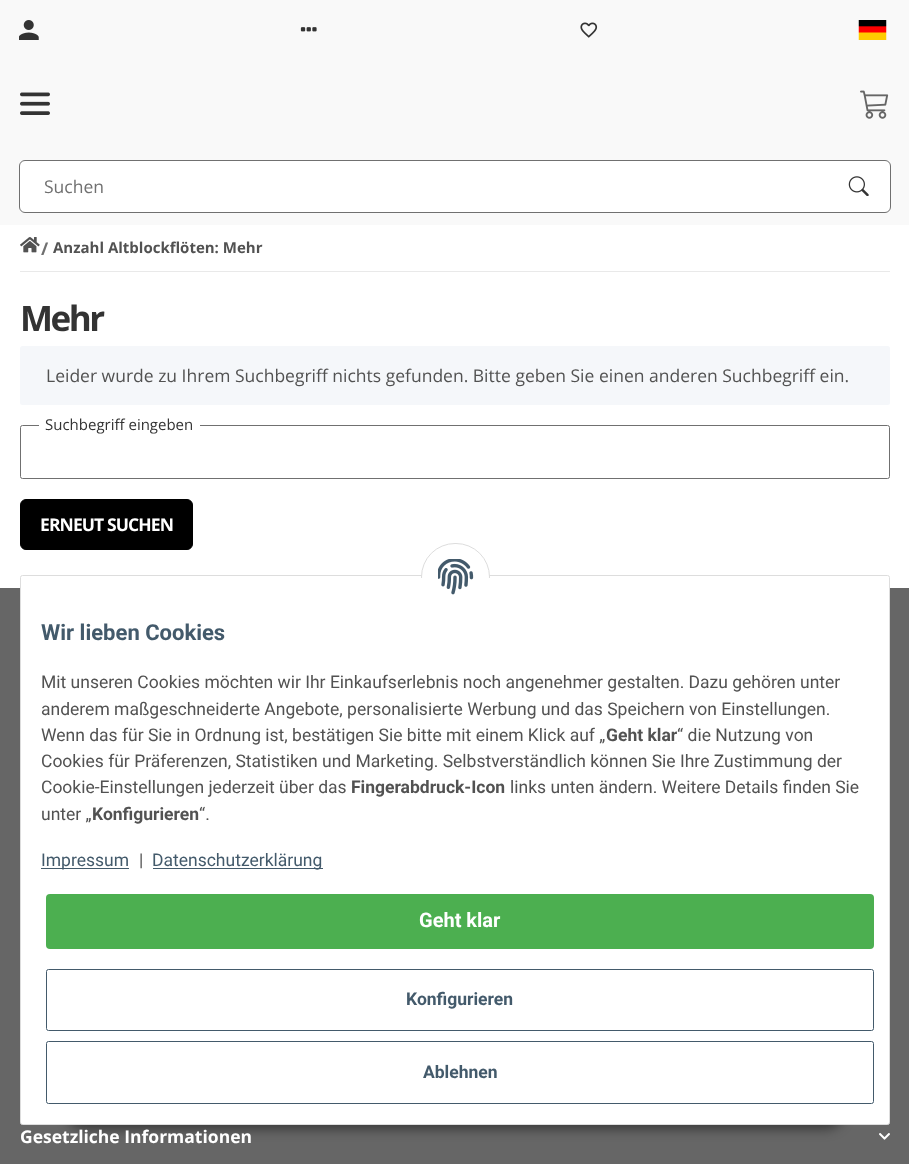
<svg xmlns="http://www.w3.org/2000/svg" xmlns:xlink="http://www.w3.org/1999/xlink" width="909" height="1164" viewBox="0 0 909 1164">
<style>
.cls-1{font:17.5px Open Sans;fill:#707070}
.cls-2{font:bold 17.5px Open Sans;fill:#707070}
.cls-3{font:bold 15px Open Sans;fill:#525252}
.cls-4{font:bold 35px Open Sans;letter-spacing:-2.5px;fill:#333333}
.cls-5{font:17.5px Open Sans;fill:#525252}
.cls-6{font:15px Open Sans;fill:#333333}
.cls-7{font:bold 17.5px Open Sans;letter-spacing:-0.9px;fill:#ffffff}
.cls-8{font:bold 22px Roboto;fill:#435a6b}
.cls-9{font:17.5px Roboto;fill:#525252}
.cls-10{font:bold 17.5px Roboto;fill:#525252}
.cls-11{font:17.5px Roboto;fill:#435a6b}
.cls-12{font:bold 20px Roboto;fill:#ffffff}
.cls-13{font:bold 17.5px Roboto;fill:#435a6b}
.cls-14{font:bold 17.5px Open Sans;fill:#ffffff}
</style>
<rect width="100%" height="100%" fill="#ffffff"/>
<rect fill="#f9f9f9" x="0" y="0" width="909" height="225"/>
<image xlink:href="image0.png" x="19" y="20" width="20" height="20"/>
<image xlink:href="image1.png" x="300" y="27" width="17" height="5"/>
<image xlink:href="image2.png" x="580" y="22" width="18" height="16"/>
<image xlink:href="image3.png" x="858" y="20" width="29" height="20"/>
<image xlink:href="image4.png" x="20" y="92" width="30" height="23"/>
<image xlink:href="image5.png" x="860" y="90" width="29" height="29"/>
<rect fill="#ffffff" stroke="#707070" x="19.5" y="160.5" width="871" height="52" rx="5.5"/>
<image xlink:href="image6.png" x="848" y="176" width="21" height="20"/>
<image xlink:href="image7.png" x="20" y="237" width="20" height="16"/>
<rect fill="#e9e9e9" x="20" y="271" width="870" height="1"/>
<rect fill="#f5f7fa" x="20" y="346" width="870" height="59" rx="2.5"/>
<rect fill="none" stroke="#707070" x="20.5" y="425.5" width="869" height="53" rx="2"/>
<rect fill="#ffffff" x="39" y="425" width="161" height="1"/>
<rect fill="#000000" stroke="#000000" x="20.5" y="499.5" width="172" height="50" rx="5.5"/>
<rect fill="#666666" x="0" y="588" width="909" height="576"/>
<rect fill="#000000" fill-opacity="0.45" filter="blur(6px)" x="65" y="1089" width="780" height="40" rx="20"/>
<rect fill="#ffffff" stroke="#dddddd" x="20.5" y="575.5" width="869" height="549" rx="2"/>
<rect fill="#ffffff" stroke="#dddddd" x="421.5" y="543.5" width="68" height="67" rx="33.5"/>
<rect fill="#ffffff" x="421" y="578" width="69" height="33"/>
<image xlink:href="image8.png" x="438" y="559" width="36" height="36"/>
<rect fill="#435a6b" x="41" y="868" width="88" height="1"/>
<rect fill="#435a6b" x="153" y="868" width="170" height="1"/>
<rect fill="#4caf50" x="46" y="894" width="828" height="55" rx="4"/>
<rect fill="none" stroke="#435a6b" x="46.5" y="969.5" width="827" height="61" rx="2"/>
<rect fill="none" stroke="#435a6b" x="46.5" y="1041.5" width="827" height="62" rx="2"/>
<image xlink:href="image9.png" x="879" y="1133" width="11" height="7"/>
<text class="cls-1" x="44" y="193">Suchen</text>
<text class="cls-2" x="41" y="255">/</text>
<text class="cls-3" x="53" y="253">Anzahl Altblockflöten: Mehr</text>
<text class="cls-4" x="20" y="331">Mehr</text>
<text class="cls-5" x="46" y="382">Leider wurde zu Ihrem Suchbegriff nichts gefunden. Bitte geben Sie einen anderen Suchbegriff ein.</text>
<text class="cls-6" x="45" y="430">Suchbegriff eingeben</text>
<text class="cls-7" x="40" y="531">ERNEUT SUCHEN</text>
<text class="cls-8" x="41" y="640">Wir lieben Cookies</text>
<text class="cls-9"><tspan x="41" y="688">Mit unseren Cookies möchten wir Ihr Einkaufserlebnis noch angenehmer gestalten. Dazu gehören unter</tspan><tspan x="41" y="715">anderem maßgeschneiderte Angebote, personalisierte Werbung und das Speichern von Einstellungen.</tspan><tspan x="41" y="741">Wenn das für Sie in Ordnung ist, bestätigen Sie bitte mit einem Klick auf „</tspan></text>
<text class="cls-10" x="606" y="741">Geht klar</text>
<text class="cls-9" x="677" y="741">“ die Nutzung von</text>
<text class="cls-9"><tspan x="41" y="767">Cookies für Präferenzen, Statistiken und Marketing. Selbstverständlich können Sie Ihre Zustimmung der</tspan><tspan x="41" y="793">Cookie-Einstellungen jederzeit über das</tspan></text>
<text class="cls-10" x="351" y="793">Fingerabdruck-Icon</text>
<text class="cls-9" x="510" y="793">links unten ändern. Weitere Details finden Sie</text>
<text class="cls-9" x="41" y="820">unter „</text>
<text class="cls-10" x="92" y="820">Konfigurieren</text>
<text class="cls-9" x="199" y="820">“.</text>
<text class="cls-11" x="41" y="866">Impressum</text>
<text class="cls-9" x="139" y="866">|</text>
<text class="cls-11" x="152" y="866">Datenschutzerklärung</text>
<text class="cls-12" x="419" y="927">Geht klar</text>
<text class="cls-13" x="406" y="1005">Konfigurieren</text>
<text class="cls-13" x="423" y="1078">Ablehnen</text>
<text class="cls-14" x="20" y="1143">Gesetzliche Informationen</text>
</svg>
